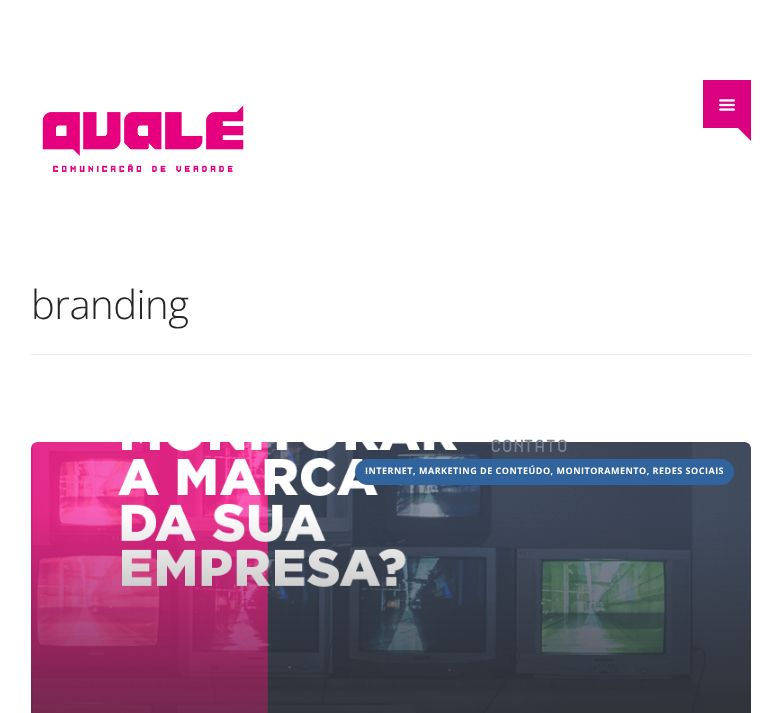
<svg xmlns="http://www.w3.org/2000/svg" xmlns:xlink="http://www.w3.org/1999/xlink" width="781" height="713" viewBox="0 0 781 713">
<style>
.cls-1{font:300 40px Open Sans;letter-spacing:-0.5px;fill:#252525}
.cls-2{font:bold 9px Open Sans;letter-spacing:0.5px;fill:#ffffff}
.cls-3{font:bold 20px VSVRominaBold;fill:#78808d}
</style>
<rect width="100%" height="100%" fill="#ffffff"/>
<rect fill="#ececec" x="31" y="354" width="720" height="1"/>
<image xlink:href="image0.png" x="31" y="442" width="720" height="271"/>
<rect fill="#31639c" x="355" y="459" width="379" height="26" rx="13"/>
<image xlink:href="image1.png" x="42" y="105" width="202" height="68"/>
<rect fill="#db0080" x="703" y="80" width="48" height="48"/>
<image xlink:href="image2.png" x="719" y="99" width="16" height="12"/>
<path fill="#db0080" d="M751 128V141L738 128Z"/>
<text class="cls-1" x="31" y="319">branding</text>
<text class="cls-2" x="365" y="474">INTERNET, MARKETING DE CONTEÚDO, MONITORAMENTO, REDES SOCIAIS</text>
<text class="cls-3" x="490" y="452">CONTATO</text>
</svg>
